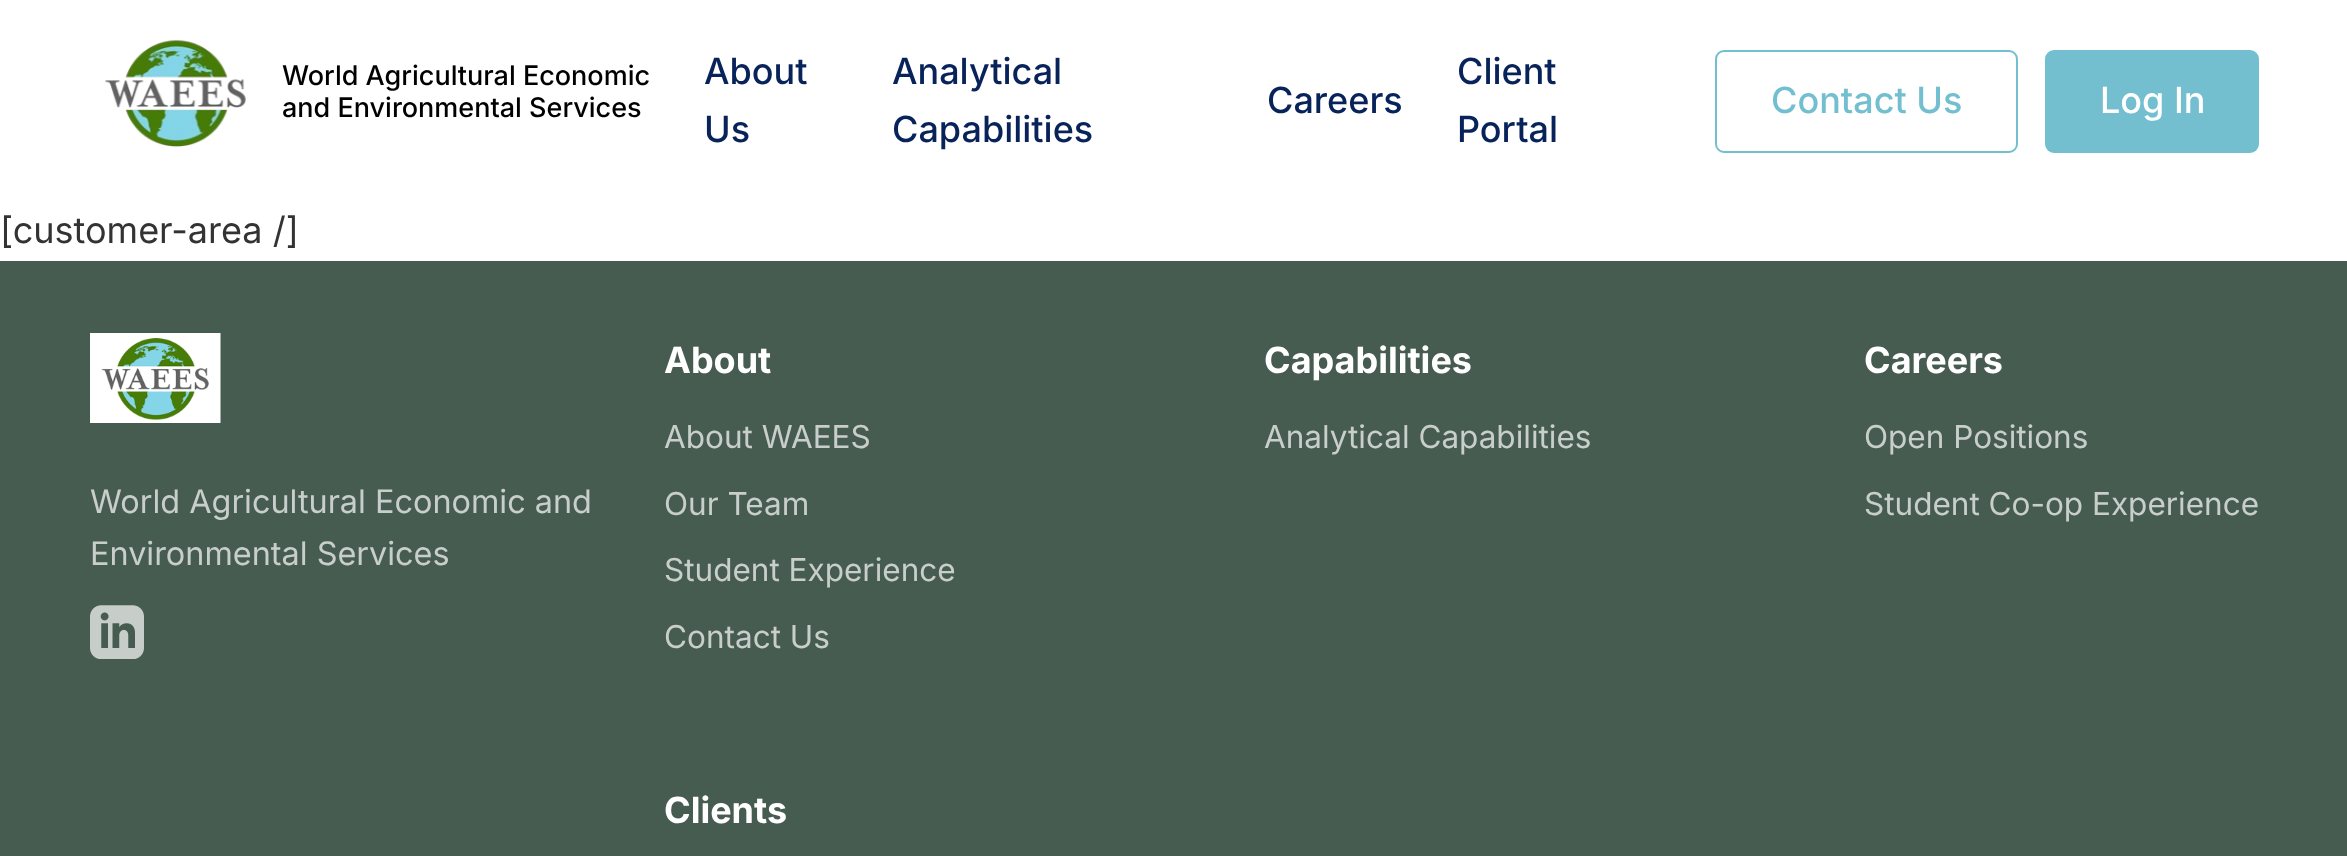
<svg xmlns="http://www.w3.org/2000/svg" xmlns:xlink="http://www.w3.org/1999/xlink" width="2347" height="856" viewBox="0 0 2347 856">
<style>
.cls-1{font:500 27px Inter;fill:#000000}
.cls-2{font:500 36px Inter;fill:#08225a}
.cls-3{font:500 36px Inter;fill:#73bfcf}
.cls-4{font:500 36px Inter;fill:#ffffff}
.cls-5{font:36px Inter;fill:#333333}
.cls-6{font:32.4px Inter;fill:#c8cecb}
.cls-7{font:bold 36px Inter;fill:#ffffff}
.cls-8{font:31.5px Inter;fill:#c8cecb}
</style>
<rect width="100%" height="100%" fill="#ffffff"/>
<image xlink:href="image0.png" x="105" y="40" width="141" height="107"/>
<rect fill="none" stroke="#73bfcf" stroke-width="2" x="1716" y="51" width="301" height="101" rx="8"/>
<rect fill="#73bfcf" x="2045" y="50" width="214" height="103" rx="9"/>
<rect fill="#475c51" x="0" y="261" width="2347" height="595"/>
<image xlink:href="image1.png" x="90" y="333" width="131" height="90"/>
<image xlink:href="image2.png" x="90" y="605" width="54" height="54"/>
<text class="cls-1"><tspan x="282" y="85">World Agricultural Economic</tspan><tspan x="282" y="117">and Environmental Services</tspan></text>
<text class="cls-2"><tspan x="704" y="84">About</tspan><tspan x="704" y="142">Us</tspan></text>
<text class="cls-2"><tspan x="892" y="84">Analytical</tspan><tspan x="892" y="142">Capabilities</tspan></text>
<text class="cls-2" x="1267" y="113">Careers</text>
<text class="cls-2"><tspan x="1457" y="84">Client</tspan><tspan x="1457" y="142">Portal</tspan></text>
<text class="cls-3" x="1771" y="113">Contact Us</text>
<text class="cls-4" x="2100" y="113">Log In</text>
<text class="cls-5" x="0" y="243">[customer-area /]</text>
<text class="cls-6"><tspan x="90" y="513">World Agricultural Economic and</tspan><tspan x="90" y="565">Environmental Services</tspan></text>
<text class="cls-7" x="664" y="373">About</text>
<text class="cls-8" x="664" y="448">About WAEES</text>
<text class="cls-8" x="664" y="515">Our Team</text>
<text class="cls-8" x="664" y="581">Student Experience</text>
<text class="cls-8" x="664" y="648">Contact Us</text>
<text class="cls-7" x="1264" y="373">Capabilities</text>
<text class="cls-8" x="1264" y="448">Analytical Capabilities</text>
<text class="cls-7" x="1864" y="373">Careers</text>
<text class="cls-8" x="1864" y="448">Open Positions</text>
<text class="cls-8" x="1864" y="515">Student Co-op Experience</text>
<text class="cls-7" x="664" y="823">Clients</text>
</svg>
